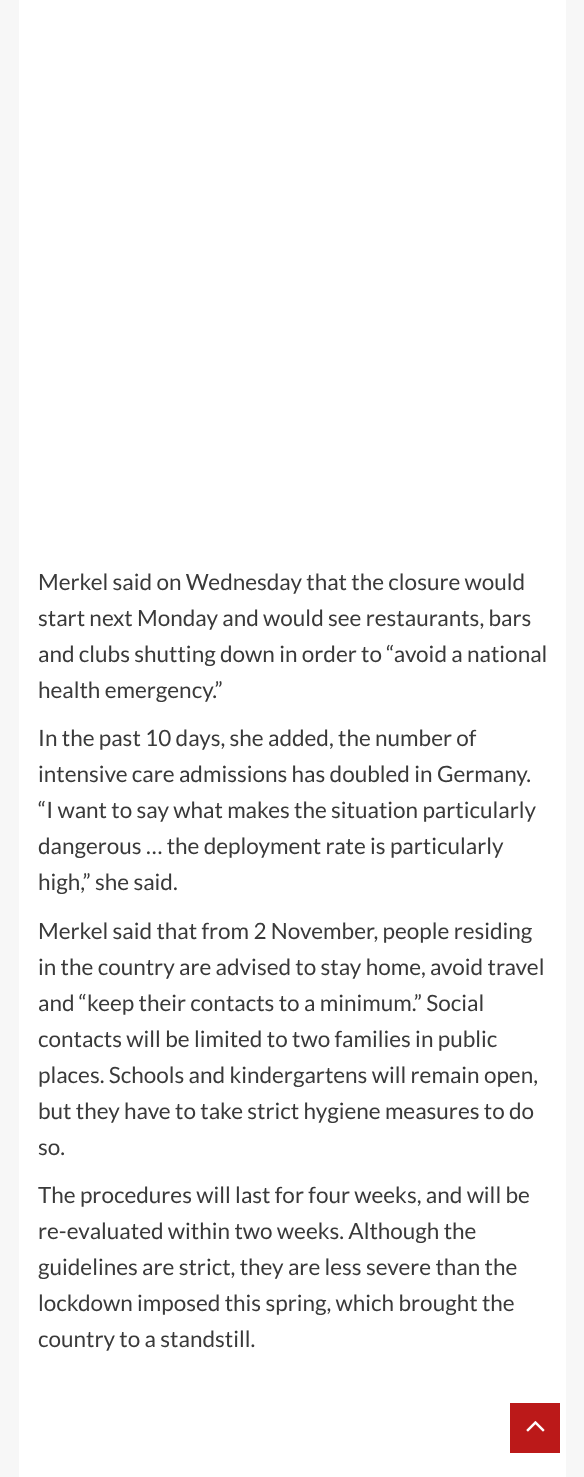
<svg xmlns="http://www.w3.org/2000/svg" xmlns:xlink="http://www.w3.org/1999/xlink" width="584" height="1477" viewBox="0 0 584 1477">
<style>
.cls-1{font:22.5px Lato;fill:#3a3a3a}
</style>
<rect width="100%" height="100%" fill="#f7f7f7"/>
<rect fill="#ffffff" x="19" y="0" width="547" height="1477"/>
<rect fill="#bb1919" x="510" y="1403" width="50" height="50"/>
<image xlink:href="image0.png" x="526" y="1421" width="19" height="11"/>
<text class="cls-1"><tspan x="38" y="590">Merkel said on Wednesday that the closure would</tspan><tspan x="38" y="626">start next Monday and would see restaurants, bars</tspan><tspan x="38" y="662">and clubs shutting down in order to “avoid a national</tspan><tspan x="38" y="698">health emergency.”</tspan></text>
<text class="cls-1"><tspan x="38" y="746">In the past 10 days, she added, the number of</tspan><tspan x="38" y="782">intensive care admissions has doubled in Germany.</tspan><tspan x="38" y="818">“I want to say what makes the situation particularly</tspan><tspan x="38" y="854">dangerous … the deployment rate is particularly</tspan><tspan x="38" y="890">high,” she said.</tspan></text>
<text class="cls-1"><tspan x="38" y="939">Merkel said that from 2 November, people residing</tspan><tspan x="38" y="975">in the country are advised to stay home, avoid travel</tspan><tspan x="38" y="1011">and “keep their contacts to a minimum.” Social</tspan><tspan x="38" y="1047">contacts will be limited to two families in public</tspan><tspan x="38" y="1083">places. Schools and kindergartens will remain open,</tspan><tspan x="38" y="1119">but they have to take strict hygiene measures to do</tspan><tspan x="38" y="1155">so.</tspan></text>
<text class="cls-1"><tspan x="38" y="1203">The procedures will last for four weeks, and will be</tspan><tspan x="38" y="1239">re-evaluated within two weeks. Although the</tspan><tspan x="38" y="1275">guidelines are strict, they are less severe than the</tspan><tspan x="38" y="1311">lockdown imposed this spring, which brought the</tspan><tspan x="38" y="1347">country to a standstill.</tspan></text>
</svg>
